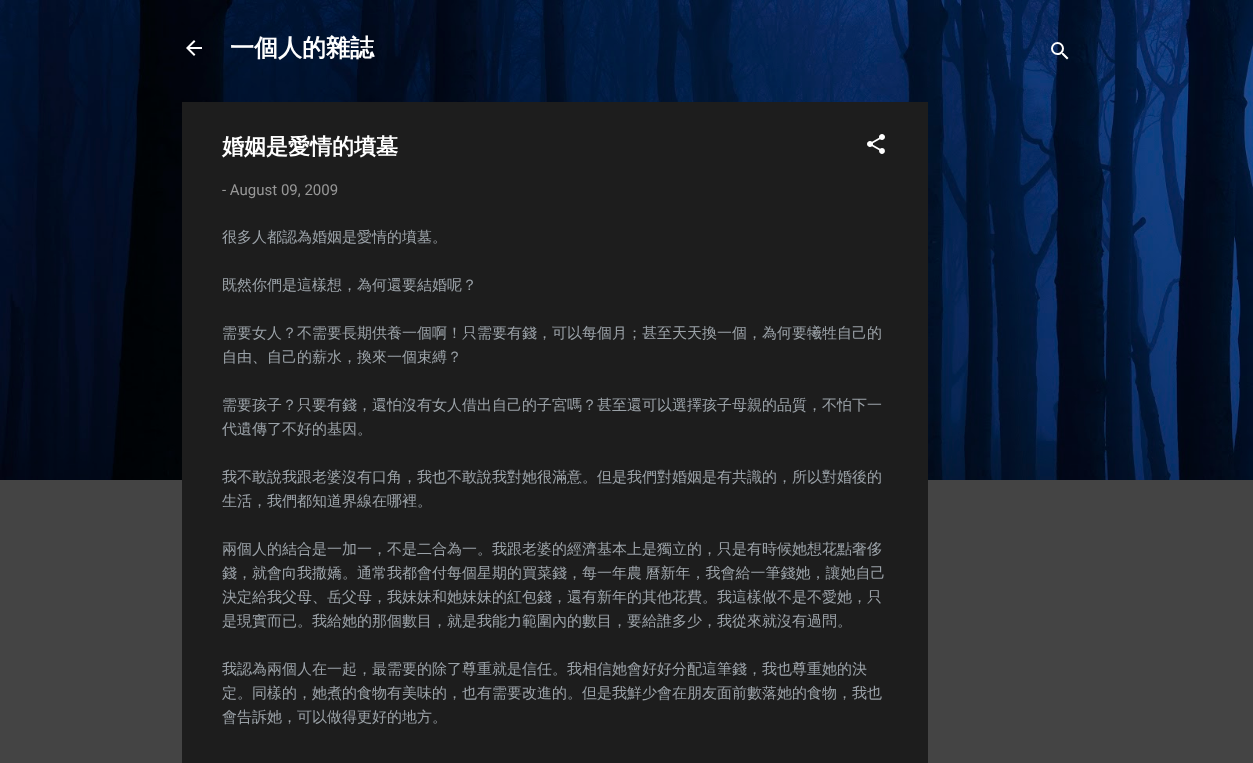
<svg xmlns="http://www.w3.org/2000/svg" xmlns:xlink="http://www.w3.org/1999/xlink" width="1253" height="763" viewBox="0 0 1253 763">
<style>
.cls-1{font:bold 24px WenQuanYi Zen Hei;fill:#ffffff}
.cls-2{font:bold 22px WenQuanYi Zen Hei;fill:#ffffff}
.cls-3{font:15px Roboto;fill:#979797}
.cls-4{font:500 15px WenQuanYi Zen Hei;fill:#9ba2a8}
</style>
<rect width="100%" height="100%" fill="#444444"/>
<image xlink:href="image0.png" x="0" y="0" width="1253" height="480"/>
<image xlink:href="image1.png" x="186" y="40" width="16" height="16"/>
<image xlink:href="image2.png" x="1051" y="42" width="18" height="18"/>
<rect fill="#1d1d1d" x="182" y="102" width="746" height="661"/>
<image xlink:href="image3.png" x="867" y="134" width="18" height="20"/>
<text class="cls-1" x="230" y="56">一個人的雜誌</text>
<text class="cls-2" x="222" y="154">婚姻是愛情的墳墓</text>
<text class="cls-3" x="222" y="195">- August 09, 2009</text>
<text class="cls-4" x="222" y="242">很多人都認為婚姻是愛情的墳墓。</text>
<text class="cls-4" x="222" y="290">既然你們是這樣想，為何還要結婚呢？</text>
<text class="cls-4"><tspan x="222" y="338">需要女人？不需要長期供養一個啊！只需要有錢，可以每個月；甚至天天換一個，為何要犧牲自己的</tspan><tspan x="222" y="362">自由、自己的薪水，換來一個束縛？</tspan></text>
<text class="cls-4"><tspan x="222" y="410">需要孩子？只要有錢，還怕沒有女人借出自己的子宮嗎？甚至還可以選擇孩子母親的品質，不怕下一</tspan><tspan x="222" y="434">代遺傳了不好的基因。</tspan></text>
<text class="cls-4"><tspan x="222" y="482">我不敢說我跟老婆沒有口角，我也不敢說我對她很滿意。但是我們對婚姻是有共識的，所以對婚後的</tspan><tspan x="222" y="506">生活，我們都知道界線在哪裡。</tspan></text>
<text class="cls-4"><tspan x="222" y="554">兩個人的結合是一加一，不是二合為一。我跟老婆的經濟基本上是獨立的，只是有時候她想花點奢侈</tspan><tspan x="222" y="578" word-spacing="-1">錢，就會向我撒嬌。通常我都會付每個星期的買菜錢，每一年農 曆新年，我會給一筆錢她，讓她自己</tspan><tspan x="222" y="602">決定給我父母、岳父母，我妹妹和她妹妹的紅包錢，還有新年的其他花費。我這樣做不是不愛她，只</tspan><tspan x="222" y="626">是現實而已。我給她的那個數目，就是我能力範圍內的數目，要給誰多少，我從來就沒有過問。</tspan></text>
<text class="cls-4"><tspan x="222" y="674">我認為兩個人在一起，最需要的除了尊重就是信任。我相信她會好好分配這筆錢，我也尊重她的決</tspan><tspan x="222" y="698">定。同樣的，她煮的食物有美味的，也有需要改進的。但是我鮮少會在朋友面前數落她的食物，我也</tspan><tspan x="222" y="722">會告訴她，可以做得更好的地方。</tspan></text>
</svg>
